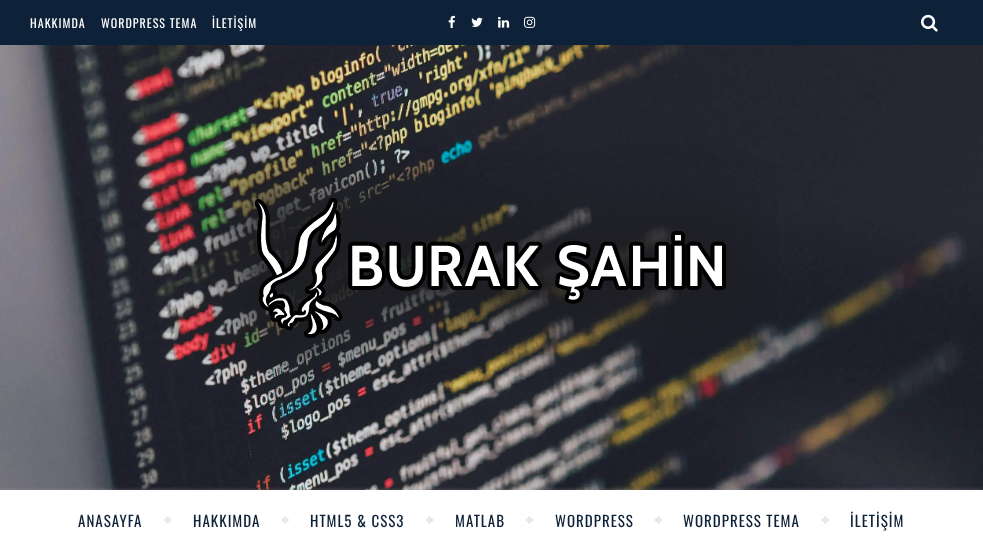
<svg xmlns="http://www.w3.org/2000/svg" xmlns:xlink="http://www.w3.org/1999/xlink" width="983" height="544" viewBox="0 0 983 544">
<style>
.cls-1{font:12px Oswald;letter-spacing:1px;fill:#ffffff}
.cls-2{font:15px Oswald;letter-spacing:1px;fill:#0d2138}
</style>
<defs>
<clipPath id="clip1"><rect x="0" y="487" width="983" height="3"/></clipPath>
</defs>
<rect width="100%" height="100%" fill="#ffffff"/>
<rect fill="#0d2138" x="0" y="0" width="983" height="45"/>
<image xlink:href="image0.png" x="448" y="15" width="7" height="13"/>
<image xlink:href="image1.png" x="471" y="17" width="12" height="10"/>
<image xlink:href="image2.png" x="498" y="16" width="12" height="12"/>
<image xlink:href="image3.png" x="524" y="16" width="12" height="12"/>
<image xlink:href="image4.png" x="921" y="14" width="17" height="18"/>
<image xlink:href="image5.png" x="0" y="45" width="983" height="445"/>
<image xlink:href="image6.png" x="174" y="120" width="604" height="298"/>
<g clip-path="url(#clip1)">
<rect fill="#b9b9b9" fill-opacity="0.5" filter="blur(2.5px)" x="0" y="491" width="983" height="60"/>
</g>
<path fill="#e8e8e8" d="M163.5 520L167.5 516L172 520L167.5 524Z"/>
<path fill="#e8e8e8" d="M281 520L285 516L289.5 520L285 524Z"/>
<path fill="#e8e8e8" d="M425.5 520L429.5 516L434 520L429.5 524Z"/>
<path fill="#e8e8e8" d="M525.5 520L529.5 516L534 520L529.5 524Z"/>
<path fill="#e8e8e8" d="M654 520L658.5 516L662.5 520L658.5 524Z"/>
<path fill="#e8e8e8" d="M821 520L825.5 516L829.5 520L825.5 524Z"/>
<text class="cls-1" x="30" y="28">HAKKIMDA</text>
<text class="cls-1" x="101" y="28">WORDPRESS TEMA</text>
<text class="cls-1" x="212" y="28">İLETİŞİM</text>
<text class="cls-2" x="78" y="527">ANASAYFA</text>
<text class="cls-2" x="193" y="527">HAKKIMDA</text>
<text class="cls-2" x="310" y="527">HTML5 &amp; CSS3</text>
<text class="cls-2" x="455" y="527">MATLAB</text>
<text class="cls-2" x="555" y="527">WORDPRESS</text>
<text class="cls-2" x="683" y="527">WORDPRESS TEMA</text>
<text class="cls-2" x="850" y="527">İLETİŞİM</text>
</svg>
